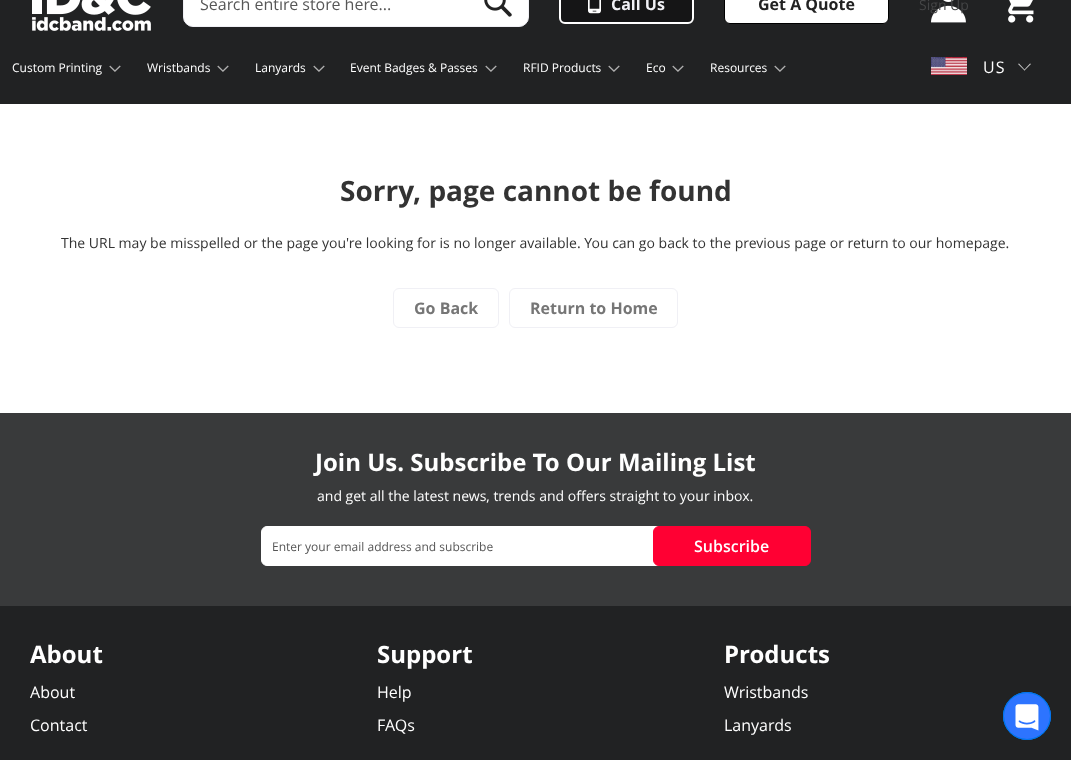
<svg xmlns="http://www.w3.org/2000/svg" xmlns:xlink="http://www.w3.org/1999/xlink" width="1071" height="760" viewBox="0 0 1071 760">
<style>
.cls-1{font:16px Open Sans;fill:#575757}
.cls-2{font:bold 16px Open Sans;fill:#f0f0f5}
.cls-3{font:bold 16px Open Sans;fill:#222222}
.cls-4{font:14px Open Sans;fill:#444546}
.cls-5{font:16px Open Sans;letter-spacing:1px;fill:#ffffff}
.cls-6{font:12px Open Sans;fill:#ffffff}
.cls-7{font:bold 28px Open Sans;fill:#333333}
.cls-8{font:14px Open Sans;fill:#333333}
.cls-9{font:bold 16px Open Sans;fill:#767676}
.cls-10{font:bold 24px Open Sans;fill:#ffffff}
.cls-11{font:14px Open Sans;fill:#ffffff}
.cls-12{font:12px Open Sans;fill:#575757}
.cls-13{font:600 16px Open Sans;fill:#ffffff}
.cls-14{font:16px Open Sans;fill:#ffffff}
</style>
<rect width="100%" height="100%" fill="#ffffff"/>
<rect fill="#212223" x="0" y="0" width="1071" height="104"/>
<image xlink:href="image0.png" x="32" y="0" width="119" height="31"/>
<rect fill="#ffffff" stroke="#f0f0f5" x="183.5" y="-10.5" width="345" height="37" rx="9.5"/>
<image xlink:href="image1.png" x="484" y="0" width="28" height="17"/>
<rect fill="#151516" stroke="#ffffff" stroke-width="2" x="560" y="-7" width="133" height="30" rx="5"/>
<image xlink:href="image2.png" x="588" y="0" width="13" height="14"/>
<rect fill="#ffffff" stroke="#000000" x="724.5" y="-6.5" width="164" height="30" rx="5.5"/>
<image xlink:href="image3.png" x="931" y="0" width="35" height="23"/>
<image xlink:href="image4.png" x="1008" y="0" width="26" height="23"/>
<image xlink:href="image5.png" x="931" y="57" width="36" height="18"/>
<path fill="#cccccc" d="M1030 63.5L1031 64L1024.5 70.5L1024 70Z"/>
<path fill="#cccccc" d="M1019 63.5L1025 70L1024.5 70.5L1018 64Z"/>
<image xlink:href="image6.png" x="109" y="65" width="12" height="7"/>
<image xlink:href="image6.png" x="217" y="65" width="12" height="7"/>
<image xlink:href="image6.png" x="313" y="65" width="12" height="7"/>
<image xlink:href="image6.png" x="485" y="65" width="12" height="7"/>
<image xlink:href="image6.png" x="608" y="65" width="12" height="7"/>
<image xlink:href="image6.png" x="672" y="65" width="12" height="7"/>
<image xlink:href="image6.png" x="774" y="65" width="12" height="7"/>
<rect fill="none" stroke="#f0f0f5" x="393.5" y="288.5" width="105" height="39" rx="5.5"/>
<rect fill="none" stroke="#f0f0f5" x="509.5" y="288.5" width="168" height="39" rx="5.5"/>
<rect fill="#393a3b" x="0" y="413" width="1071" height="193"/>
<path fill="#ffffff" stroke="#ffffff" d="M267 526.5H658.5V565.5H267C264 565.5 261.5 563 261.5 560V532C261.5 529 264 526.5 267 526.5Z"/>
<rect fill="#ff0033" stroke="#ff0033" x="653.5" y="526.5" width="157" height="39" rx="5.5"/>
<rect fill="#212223" x="0" y="606" width="1071" height="154"/>
<circle fill="#0075eb" cx="1027" cy="716" r="24"/>
<image xlink:href="image7.png" x="1003" y="692" width="48" height="48"/>
<circle fill="none" stroke="#0075eb" cx="1027" cy="716" r="23.5"/>
<text class="cls-1" x="200" y="10">Search entire store here...</text>
<text class="cls-2" x="611" y="10">Call Us</text>
<text class="cls-3" x="758" y="10">Get A Quote</text>
<text class="cls-4" x="919" y="10">Sign Up</text>
<text class="cls-5" x="983" y="73">US</text>
<text class="cls-6" x="12" y="72">Custom Printing</text>
<text class="cls-6" x="147" y="72">Wristbands</text>
<text class="cls-6" x="255" y="72">Lanyards</text>
<text class="cls-6" x="350" y="72">Event Badges &amp; Passes</text>
<text class="cls-6" x="523" y="72">RFID Products</text>
<text class="cls-6" x="646" y="72">Eco</text>
<text class="cls-6" x="710" y="72">Resources</text>
<text class="cls-7" x="340" y="201">Sorry, page cannot be found</text>
<text class="cls-8" x="61" y="248">The URL may be misspelled or the page you're looking for is no longer available. You can go back to the previous page or return to our homepage.</text>
<text class="cls-9" x="414" y="314">Go Back</text>
<text class="cls-9" x="530" y="314">Return to Home</text>
<text class="cls-10" x="315" y="471">Join Us. Subscribe To Our Mailing List</text>
<text class="cls-11" x="317" y="501">and get all the latest news, trends and offers straight to your inbox.</text>
<text class="cls-12" x="272" y="551">Enter your email address and subscribe</text>
<text class="cls-13" x="694" y="552">Subscribe</text>
<text class="cls-10" x="30" y="663">About</text>
<text class="cls-14" x="30" y="698">About</text>
<text class="cls-14" x="30" y="731">Contact</text>
<text class="cls-10" x="377" y="663">Support</text>
<text class="cls-14" x="377" y="698">Help</text>
<text class="cls-14" x="377" y="731">FAQs</text>
<text class="cls-10" x="724" y="663">Products</text>
<text class="cls-14" x="724" y="698">Wristbands</text>
<text class="cls-14" x="724" y="731">Lanyards</text>
</svg>
